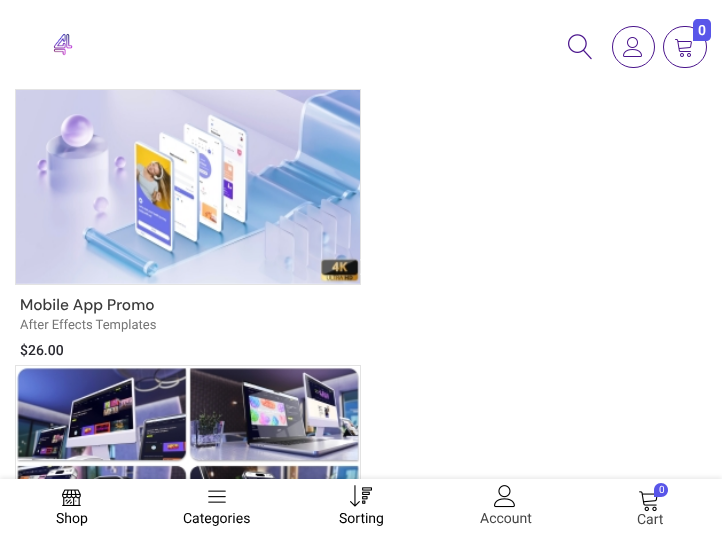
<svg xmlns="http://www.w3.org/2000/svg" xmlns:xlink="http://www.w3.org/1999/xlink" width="722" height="534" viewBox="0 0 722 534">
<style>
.cls-1{font:600 14px Roboto;fill:#ffffff}
.cls-2{font:500 15.5px DM Sans;fill:#3a3a3a}
.cls-3{font:13px Roboto;fill:#757575}
.cls-4{font:500 14px Roboto;fill:#292930}
.cls-5{font:14px Roboto;fill:#000000}
.cls-6{font:14px Roboto;fill:#464646}
.cls-7{font:10px Roboto;fill:#ffffff}
</style>
<rect width="100%" height="100%" fill="#ffffff"/>
<image xlink:href="image0.png" x="568" y="34" width="24" height="26"/>
<rect fill="none" stroke="#4a148c" x="612.5" y="26.5" width="42" height="41" rx="20.5"/>
<image xlink:href="image1.png" x="623" y="37" width="19" height="20"/>
<rect fill="none" stroke="#4a148c" x="663.5" y="26.5" width="43" height="41" rx="20.5"/>
<path fill="#5956e9" d="M698 19H706C709 19 711 21 711 24V36C711 39 709 41 706 41H693V24C693 21 695 19 698 19Z"/>
<image xlink:href="image2.png" x="675" y="39" width="17" height="18"/>
<image xlink:href="image3.png" x="53" y="33" width="20" height="23"/>
<rect fill="none" stroke="#e3e3e3" x="15.5" y="89.5" width="345" height="195"/>
<image xlink:href="image4.png" x="16" y="90" width="344" height="194"/>
<rect fill="none" stroke="#e3e3e3" x="15.5" y="365.5" width="345" height="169"/>
<image xlink:href="image5.png" x="16" y="367" width="344" height="112"/>
<rect fill="#000000" fill-opacity="0.08" filter="blur(2px)" x="0" y="477" width="722" height="55"/>
<rect fill="#ffffff" x="0" y="479" width="722" height="55"/>
<image xlink:href="image6.png" x="62" y="489" width="19" height="17"/>
<image xlink:href="image7.png" x="208" y="490" width="18" height="13"/>
<image xlink:href="image8.png" x="350" y="485" width="22" height="22"/>
<image xlink:href="image9.png" x="494" y="485" width="21" height="23"/>
<image xlink:href="image10.png" x="639" y="491" width="19" height="21"/>
<path fill="#5956e9" d="M661 483C665 483 668 486 668 490C668 494 665 497 661 497H654V490C654 486 657 483 661 483Z"/>
<path fill="none" stroke="#ffffff" stroke-width="2" d="M361 259C365 263.5 365 270.5 361 275"/>
<text class="cls-1" x="698" y="35">0</text>
<text class="cls-2" x="20" y="310">Mobile App Promo</text>
<text class="cls-3" x="20" y="329">After Effects Templates</text>
<text class="cls-4" x="20" y="355">$26.00</text>
<text class="cls-5" x="56" y="523">Shop</text>
<text class="cls-5" x="183" y="523">Categories</text>
<text class="cls-5" x="339" y="523">Sorting</text>
<text class="cls-6" x="480" y="523">Account</text>
<text class="cls-7" x="659" y="493">0</text>
<text class="cls-6" x="637" y="524">Cart</text>
</svg>
